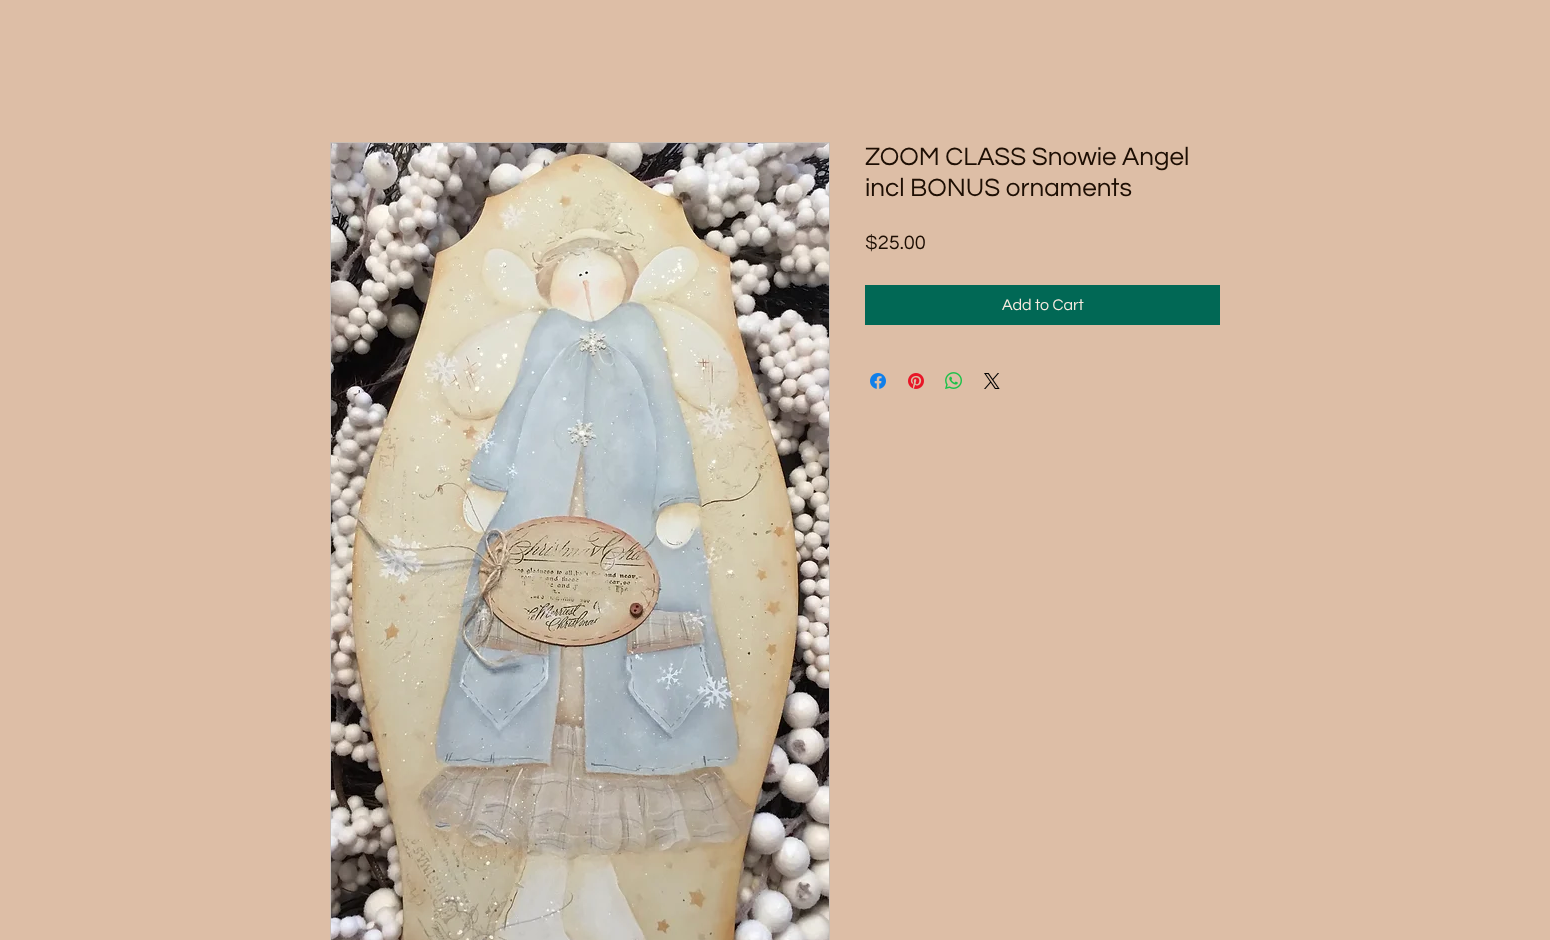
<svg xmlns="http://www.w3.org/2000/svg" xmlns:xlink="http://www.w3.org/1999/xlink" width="1550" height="940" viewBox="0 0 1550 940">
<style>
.cls-1{font:26px Questrial;fill:#1d0e03}
.cls-2{font:20px Questrial;fill:#1d0e03}
.cls-3{font:16px Questrial;fill:#faece1}
</style>
<rect width="100%" height="100%" fill="#ddbea6"/>
<rect fill="none" stroke="#c8bdb4" x="330.5" y="142.5" width="499" height="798"/>
<image xlink:href="image0.png" x="331" y="143" width="498" height="797"/>
<rect fill="#016855" x="865" y="285" width="355" height="40"/>
<image xlink:href="image1.png" x="870" y="373" width="16" height="16"/>
<image xlink:href="image2.png" x="908" y="373" width="16" height="16"/>
<image xlink:href="image3.png" x="945" y="372" width="17" height="17"/>
<image xlink:href="image4.png" x="984" y="373" width="16" height="16"/>
<text class="cls-1"><tspan x="865" y="165">ZOOM CLASS Snowie Angel</tspan><tspan x="865" y="196">incl BONUS ornaments</tspan></text>
<text class="cls-2" x="865" y="249">$25.00</text>
<text class="cls-3" x="1002" y="310">Add to Cart</text>
</svg>
